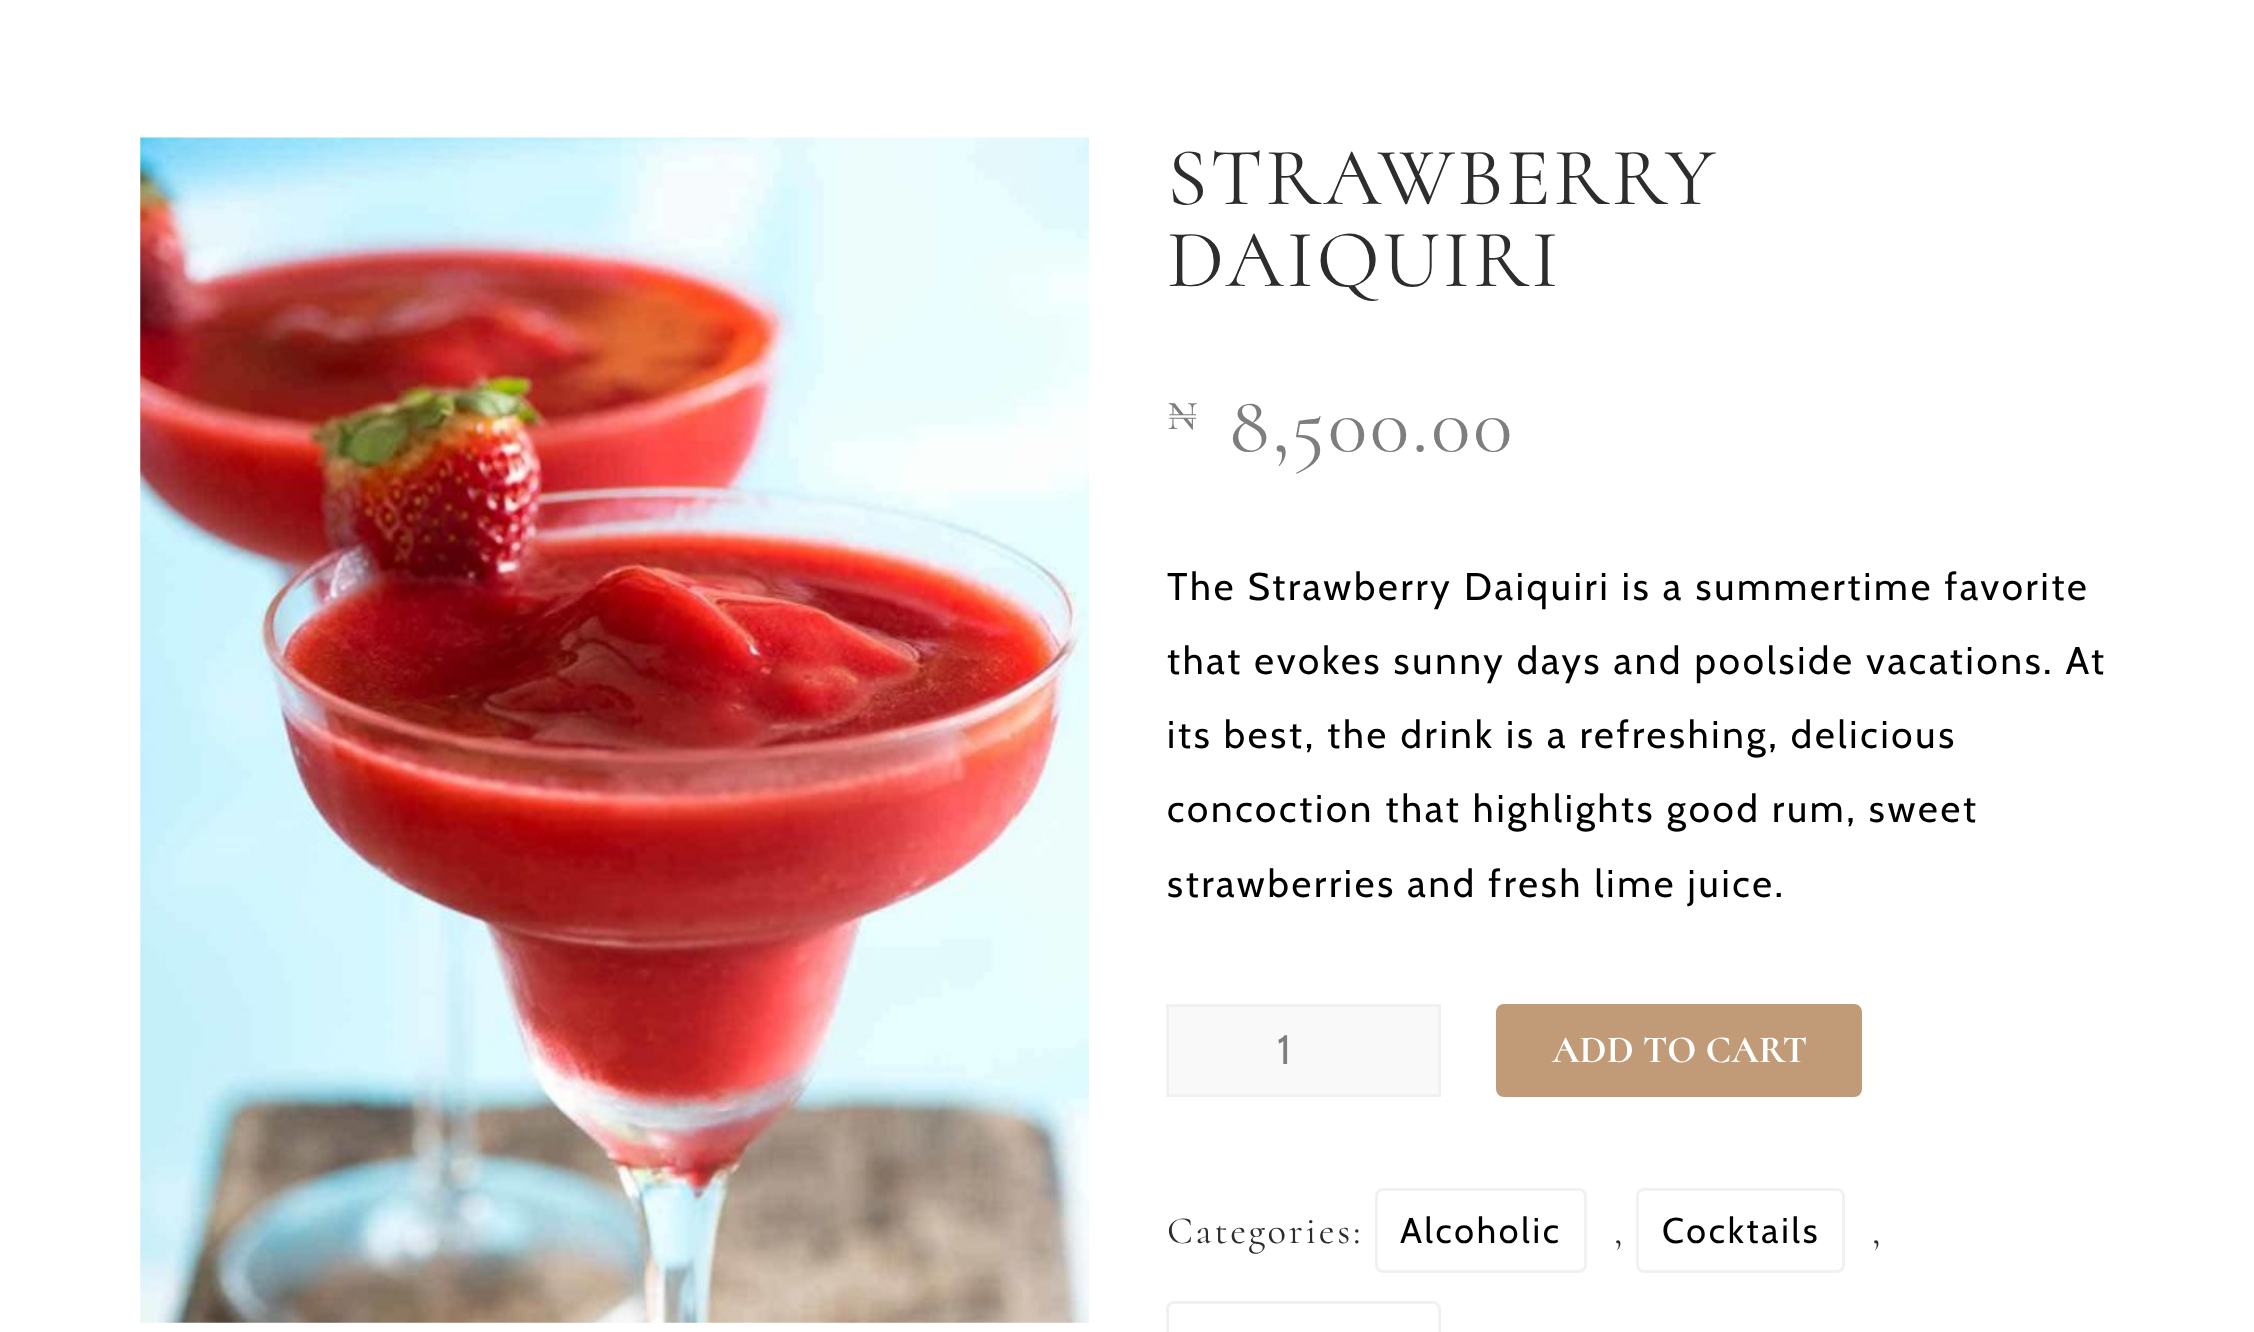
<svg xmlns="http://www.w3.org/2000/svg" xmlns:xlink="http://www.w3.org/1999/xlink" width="2254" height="1332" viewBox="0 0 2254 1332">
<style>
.cls-1{font:82.5px Cormorant;letter-spacing:2.75px;fill:#2d2d2d}
.cls-2{font:55px Cormorant;letter-spacing:2.75px;fill:#7e7e7e}
.cls-3{font:82.5px Cormorant;letter-spacing:2.75px;fill:#7e7e7e}
.cls-4{font:38.5px Cabin;letter-spacing:2.75px;fill:#000000}
.cls-5{font:41px Cabin;fill:#7e7e7e}
.cls-6{font:bold 38.5px Cormorant;fill:#ffffff}
.cls-7{font:38.5px Cormorant;letter-spacing:2.75px;fill:#2d2d2d}
.cls-8{font:35.75px Cabin;letter-spacing:2.75px;fill:#000000}
</style>
<rect width="100%" height="100%" fill="#ffffff"/>
<image xlink:href="image0.png" x="140" y="137" width="949" height="1186"/>
<rect fill="#f9f9f9" stroke="#f1f1f1" stroke-width="3" x="1167.5" y="1005.5" width="272" height="90"/>
<rect fill="#c19b77" x="1496" y="1004" width="366" height="93" rx="8"/>
<rect fill="none" stroke="#f1f1f1" stroke-width="3" x="1376.5" y="1189.5" width="209" height="82" rx="6.5"/>
<rect fill="none" stroke="#f1f1f1" stroke-width="3" x="1637.5" y="1189.5" width="206" height="82" rx="6.5"/>
<rect fill="none" stroke="#f1f1f1" stroke-width="3" x="1167.5" y="1302.5" width="272" height="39" rx="6.5"/>
<text class="cls-1"><tspan x="1167" y="204">STRAWBERRY</tspan><tspan x="1167" y="286">DAIQUIRI</tspan></text>
<text class="cls-2" x="1167" y="429">₦</text>
<text class="cls-3" x="1229" y="451">8,500.00</text>
<text class="cls-4"><tspan x="1167" y="600">The Strawberry Daiquiri is a summertime favorite</tspan><tspan x="1167" y="674">that evokes sunny days and poolside vacations. At</tspan><tspan x="1167" y="748">its best, the drink is a refreshing, delicious</tspan><tspan x="1167" y="822">concoction that highlights good rum, sweet</tspan><tspan x="1167" y="897">strawberries and fresh lime juice.</tspan></text>
<text class="cls-5" x="1277" y="1064">1</text>
<text class="cls-6" x="1552" y="1062">ADD TO CART</text>
<text class="cls-7" x="1167" y="1243">Categories:</text>
<text class="cls-8" x="1400" y="1243">Alcoholic</text>
<text class="cls-7" x="1614" y="1243">,</text>
<text class="cls-8" x="1662" y="1243">Cocktails</text>
<text class="cls-7" x="1872" y="1243">,</text>
</svg>
